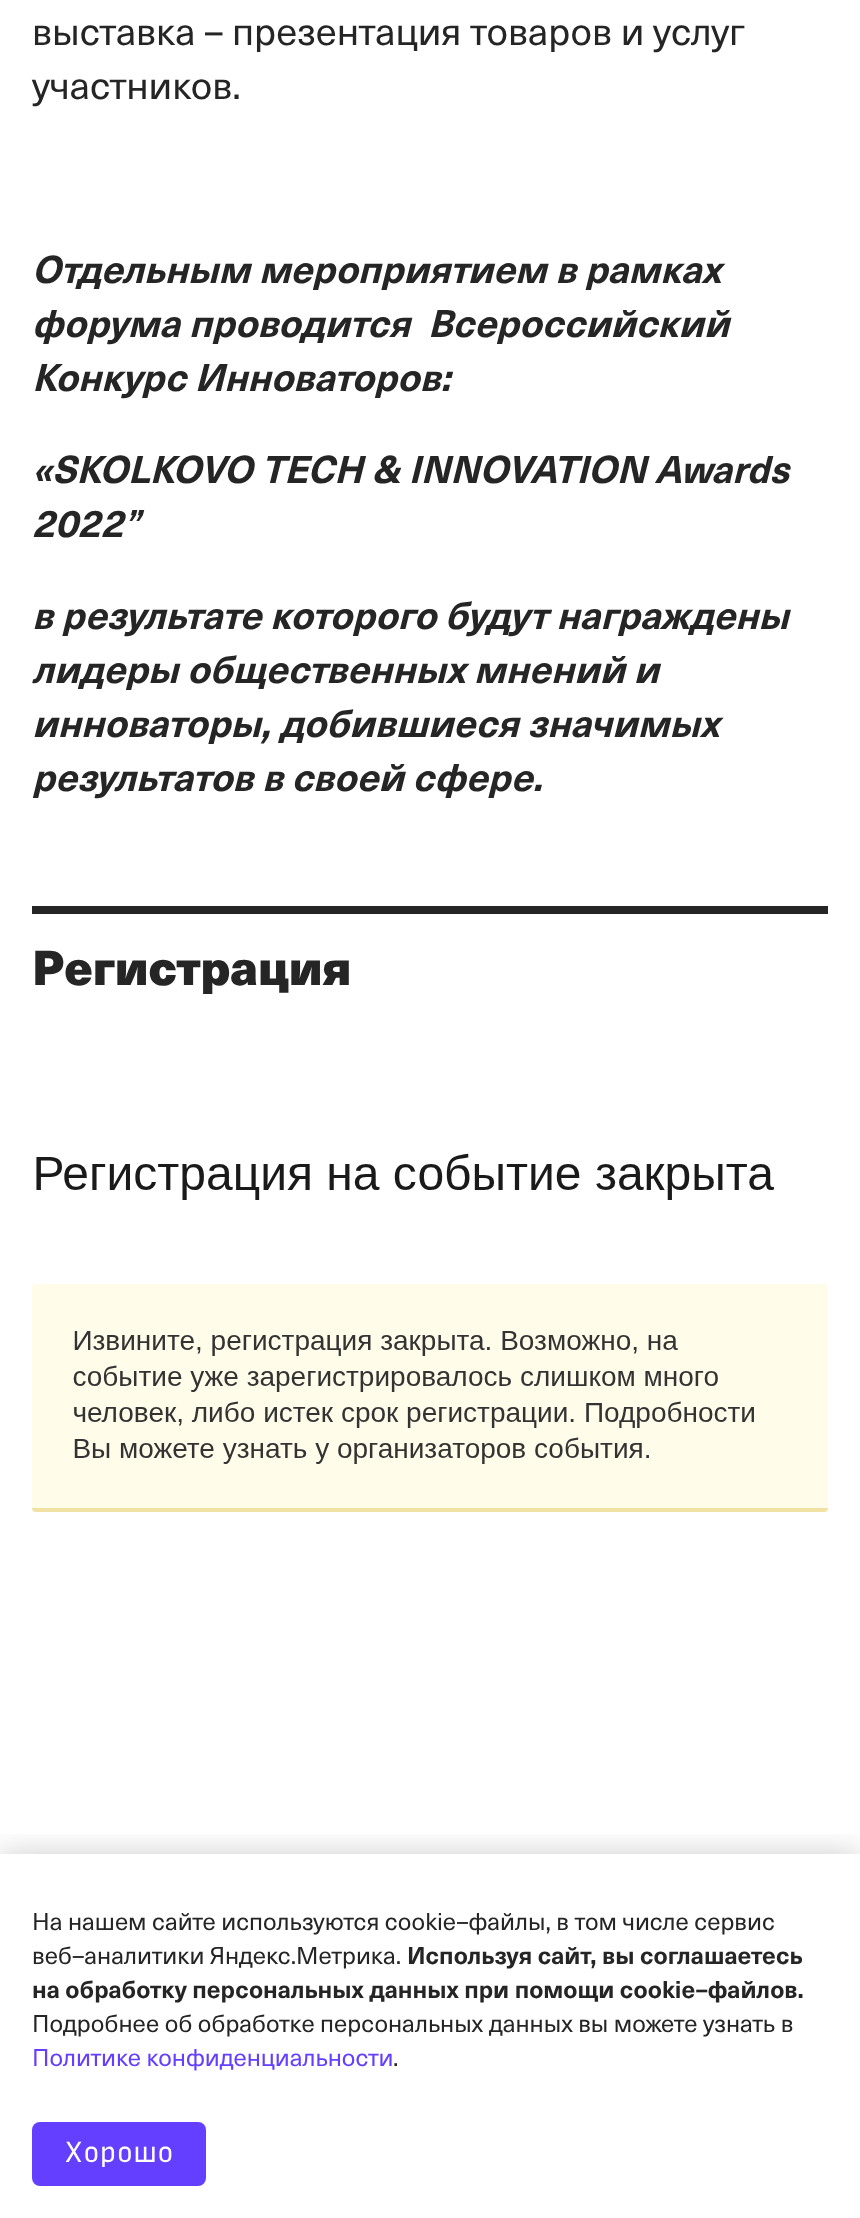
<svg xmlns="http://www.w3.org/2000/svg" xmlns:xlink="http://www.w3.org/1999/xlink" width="860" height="2218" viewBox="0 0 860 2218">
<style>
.cls-1{font:38px 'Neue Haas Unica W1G';fill:#252525}
.cls-2{font:italic bold 38px 'Neue Haas Unica W1G';fill:#252525}
.cls-3{font:900 48px 'Neue Haas Unica W1G';fill:#252525}
.cls-4{font:24px 'Neue Haas Unica W1G';fill:#252525}
.cls-5{font:bold 24px 'Neue Haas Unica W1G';fill:#252525}
.cls-6{font:24px 'Neue Haas Unica W1G';fill:#643fff}
.cls-7{font:28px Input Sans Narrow;fill:#ffffff}
</style>
<defs>
<clipPath id="clip1"><rect x="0" y="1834" width="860" height="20"/></clipPath>
</defs>
<rect width="100%" height="100%" fill="#ffffff"/>
<rect fill="#252525" x="32" y="906" width="796" height="8"/>
<image xlink:href="image0.png" x="32" y="1153" width="796" height="359"/>
<g clip-path="url(#clip1)">
<rect fill="#000000" fill-opacity="0.2" filter="blur(16px)" x="0" y="1854" width="860" height="364"/>
</g>
<rect fill="#643fff" x="32" y="2122" width="174" height="64" rx="8"/>
<text class="cls-1"><tspan x="32" y="45">выставка – презентация товаров и услуг</tspan><tspan x="32" y="99">участников.</tspan></text>
<text class="cls-2" xml:space="preserve"><tspan x="32" y="283">Отдельным мероприятием в рамках</tspan><tspan x="32" y="337">форума проводится  Всероссийский</tspan><tspan x="32" y="391">Конкурс Инноваторов:</tspan></text>
<text class="cls-2"><tspan x="32" y="483">«SKOLKOVO TECH &amp; INNOVATION Awards</tspan><tspan x="32" y="537">2022”</tspan></text>
<text class="cls-2"><tspan x="32" y="629">в результате которого будут награждены</tspan><tspan x="32" y="683">лидеры общественных мнений и</tspan><tspan x="32" y="737">инноваторы, добившиеся значимых</tspan><tspan x="32" y="791">результатов в своей сфере.</tspan></text>
<text class="cls-3" x="32" y="985">Регистрация</text>
<text class="cls-4"><tspan x="32" y="1930">На нашем сайте используются cookie–файлы, в том числе сервис</tspan><tspan x="32" y="1964">веб–аналитики Яндекс.Метрика.</tspan></text>
<text class="cls-5" x="407" y="1964">Используя сайт, вы соглашаетесь</text>
<text class="cls-5" x="32" y="1998">на обработку персональных данных при помощи cookie–файлов.</text>
<text class="cls-4" x="32" y="2032">Подробнее об обработке персональных данных вы можете узнать в</text>
<text class="cls-6" x="32" y="2066">Политике конфиденциальности</text>
<text class="cls-4" x="393" y="2066">.</text>
<text class="cls-7" x="64" y="2162">Хорошо</text>
</svg>
